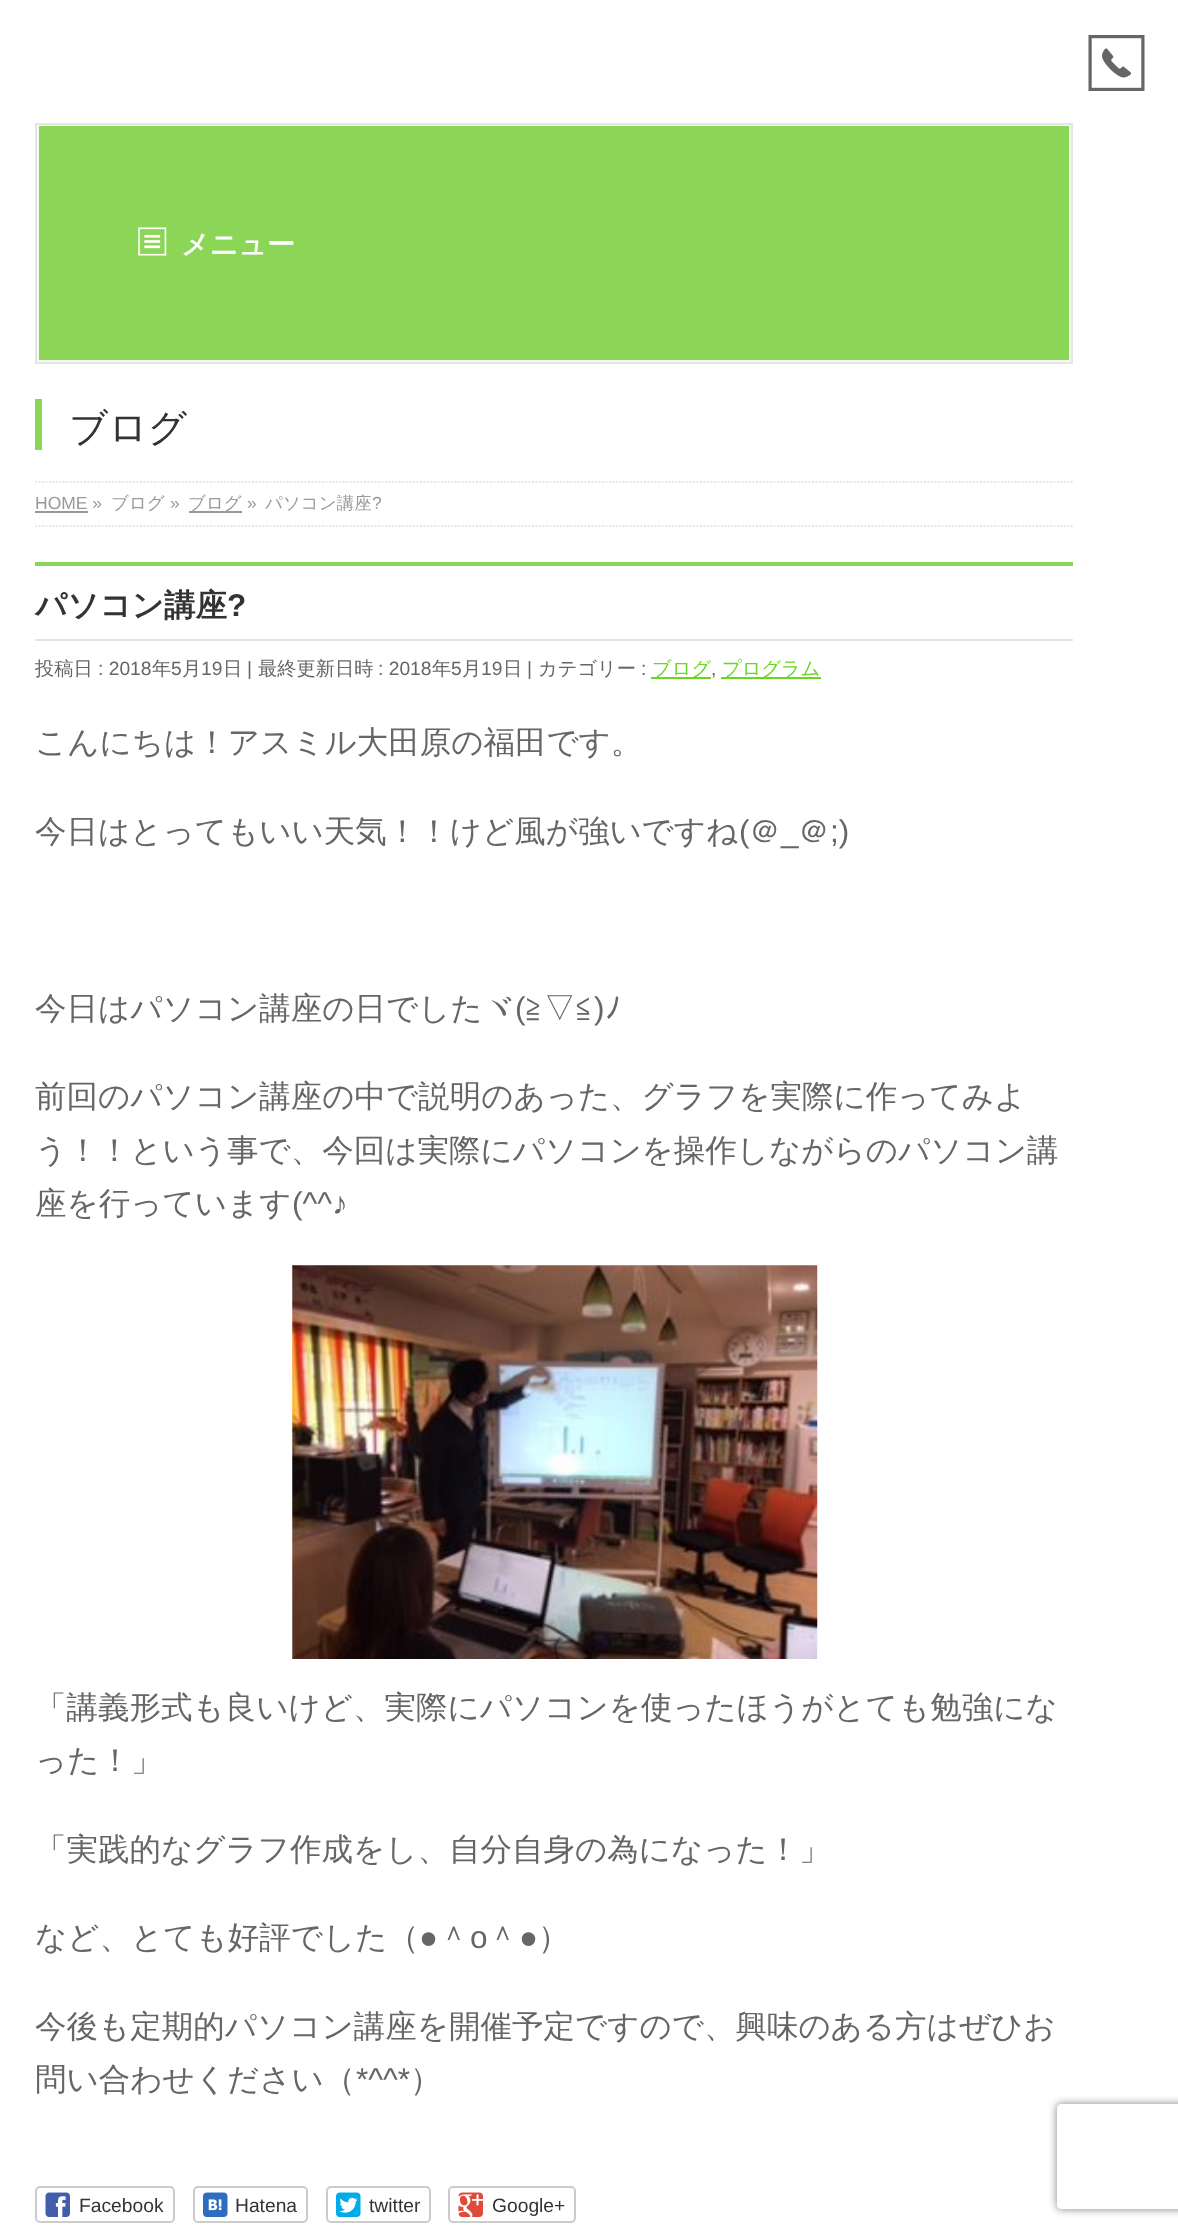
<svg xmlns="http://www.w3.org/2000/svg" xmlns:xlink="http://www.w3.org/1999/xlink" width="1178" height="2232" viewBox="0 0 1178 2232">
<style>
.cls-1{font:bold 28px WenQuanYi Zen Hei;fill:#ffffff}
.cls-2{font:500 38.5px WenQuanYi Zen Hei;fill:#333333}
.cls-3{font:17.5px Liberation Sans;fill:#999999}
.cls-4{font:500 17.5px WenQuanYi Zen Hei;fill:#999999}
.cls-5{font:bold 31.5px WenQuanYi Zen Hei;fill:#333333}
.cls-6{font:bold 31.5px Liberation Sans;fill:#333333}
.cls-7{font:500 19.25px WenQuanYi Zen Hei;fill:#666666}
.cls-8{font:19.25px Liberation Sans;fill:#666666}
.cls-9{font:500 19.25px WenQuanYi Zen Hei;fill:#6bd620}
.cls-10{font:500 31.5px WenQuanYi Zen Hei;fill:#666666}
.cls-11{font:31.5px Liberation Sans;fill:#666666}
.cls-12{font:31.5px IPAPGothic;fill:#666666}
.cls-13{font:19.25px Liberation Sans;fill:#333333}
</style>
<defs>
<clipPath id="clip1"><path d="M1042 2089H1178V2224H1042ZM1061 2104H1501C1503 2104 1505 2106 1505 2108V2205C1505 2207 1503 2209 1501 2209H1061C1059 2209 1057 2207 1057 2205V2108C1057 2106 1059 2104 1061 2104Z" clip-rule="evenodd"/></clipPath>
</defs>
<rect width="100%" height="100%" fill="#ffffff"/>
<image xlink:href="image0.png" x="1088" y="35" width="57" height="56"/>
<rect fill="#8cd657" stroke="#f4fbee" stroke-width="2" x="38" y="125" width="1032" height="236"/>
<rect fill="none" stroke="#e5e5e5" stroke-width="2" x="36" y="124" width="1036" height="239"/>
<image xlink:href="image1.png" x="138" y="227" width="29" height="29"/>
<rect fill="#8cd657" x="35" y="399" width="7" height="51"/>
<path fill="none" stroke="#e5e5e5" stroke-width="1.8" stroke-dasharray="1.75 1.75" d="M35 482H1073"/>
<path fill="none" stroke="#e5e5e5" stroke-width="1.8" stroke-dasharray="1.75 1.75" d="M35 526H1073"/>
<rect fill="#999999" x="35" y="511" width="53" height="2"/>
<rect fill="#999999" x="189" y="511" width="53" height="2"/>
<rect fill="#8cd657" x="35" y="562" width="1038" height="4"/>
<rect fill="#e5e5e5" x="35" y="639" width="1038" height="2"/>
<rect fill="#6bd620" x="651" y="677" width="60" height="2"/>
<rect fill="#6bd620" x="721" y="677" width="100" height="2"/>
<image xlink:href="image2.png" x="292" y="1265" width="526" height="394"/>
<rect fill="none" stroke="#cccccc" stroke-width="2" x="36" y="2187" width="138" height="35" rx="4"/>
<image xlink:href="image3.png" x="45" y="2192" width="25" height="25"/>
<rect fill="none" stroke="#cccccc" stroke-width="2" x="194" y="2187" width="113" height="35" rx="4"/>
<image xlink:href="image4.png" x="203" y="2192" width="25" height="25"/>
<rect fill="none" stroke="#cccccc" stroke-width="2" x="327" y="2187" width="103" height="35" rx="4"/>
<image xlink:href="image5.png" x="336" y="2192" width="25" height="25"/>
<rect fill="none" stroke="#cccccc" stroke-width="2" x="449" y="2187" width="126" height="35" rx="4"/>
<image xlink:href="image6.png" x="458" y="2192" width="25" height="25"/>
<g clip-path="url(#clip1)">
<rect fill="#808080" filter="blur(4.5px)" x="1057" y="2104" width="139" height="105" rx="4"/>
</g>
<text class="cls-1" x="181" y="254">メニュー</text>
<text class="cls-2" x="69" y="441">ブログ</text>
<text class="cls-3" x="35" y="509">HOME »</text>
<text class="cls-4" x="111" y="509">ブログ</text>
<text class="cls-3" x="170" y="509">»</text>
<text class="cls-4" x="188" y="509">ブログ</text>
<text class="cls-3" x="247" y="509">»</text>
<text class="cls-4" x="265" y="509">パソコン講座</text>
<text class="cls-3" x="372" y="509">?</text>
<text class="cls-5" x="35" y="616">パソコン講座</text>
<text class="cls-6" x="227" y="616">?</text>
<text class="cls-7" x="35" y="675">投稿日</text>
<text class="cls-8" x="98" y="675">: 2018</text>
<text class="cls-7" x="152" y="675">年</text>
<text class="cls-8" x="171" y="675">5</text>
<text class="cls-7" x="182" y="675">月</text>
<text class="cls-8" x="201" y="675">19</text>
<text class="cls-7" x="223" y="675">日</text>
<text class="cls-8" x="247" y="675">|</text>
<text class="cls-7" x="258" y="675">最終更新日時</text>
<text class="cls-8" x="378" y="675">: 2018</text>
<text class="cls-7" x="432" y="675">年</text>
<text class="cls-8" x="451" y="675">5</text>
<text class="cls-7" x="462" y="675">月</text>
<text class="cls-8" x="481" y="675">19</text>
<text class="cls-7" x="503" y="675">日</text>
<text class="cls-8" x="527" y="675">|</text>
<text class="cls-7" x="538" y="675">カテゴリー</text>
<text class="cls-8" x="641" y="675">:</text>
<text class="cls-9" x="652" y="675">ブログ</text>
<text class="cls-8" x="711" y="675">,</text>
<text class="cls-9" x="722" y="675">プログラム</text>
<text class="cls-10" x="35" y="753">こんにちは！アスミル大田原の福田です。</text>
<text class="cls-10" x="35" y="842">今日はとってもいい天気！！けど風が強いですね</text>
<text class="cls-11" x="739" y="842">(</text>
<text class="cls-10" x="749" y="842">＠</text>
<text class="cls-10" x="798" y="842">＠</text>
<text class="cls-11" x="830" y="842">;)</text>
<text class="cls-11" x="781" y="842">_</text>
<text class="cls-10" x="35" y="1019">今日はパソコン講座の日でしたヾ</text>
<text class="cls-11" x="515" y="1019">(</text>
<text class="cls-10" x="525" y="1019">≧▽≦</text>
<text class="cls-11" x="594" y="1019">)</text>
<text class="cls-12" x="605" y="1019">ﾉ</text>
<text class="cls-10"><tspan x="35" y="1107">前回のパソコン講座の中で説明のあった、グラフを実際に作ってみよ</tspan><tspan x="35" y="1161">う！！という事で、今回は実際にパソコンを操作しながらのパソコン講</tspan><tspan x="35" y="1214">座を行っています</tspan></text>
<text class="cls-11" x="292" y="1214">(^^♪</text>
<text class="cls-10"><tspan x="35" y="1718">「講義形式も良いけど、実際にパソコンを使ったほうがとても勉強にな</tspan><tspan x="35" y="1771">った！」</tspan></text>
<text class="cls-10" x="35" y="1860">「実践的なグラフ作成をし、自分自身の為になった！」</text>
<text class="cls-10" x="35" y="1948">など、とても好評でした（</text>
<text class="cls-11" x="419" y="1948">●</text>
<text class="cls-10" x="438" y="1948">＾</text>
<text class="cls-11" x="470" y="1948">o</text>
<text class="cls-10" x="487" y="1948">＾</text>
<text class="cls-11" x="519" y="1948">●</text>
<text class="cls-10" x="538" y="1948">）</text>
<text class="cls-10"><tspan x="35" y="2037">今後も定期的パソコン講座を開催予定ですので、興味のある方はぜひお</tspan><tspan x="35" y="2090">問い合わせください（</tspan></text>
<text class="cls-11" x="356" y="2090">*^^*</text>
<text class="cls-10" x="410" y="2090">）</text>
<text class="cls-13" x="79" y="2212">Facebook</text>
<text class="cls-13" x="235" y="2212">Hatena</text>
<text class="cls-13" x="369" y="2212">twitter</text>
<text class="cls-13" x="492" y="2212">Google+</text>
</svg>
